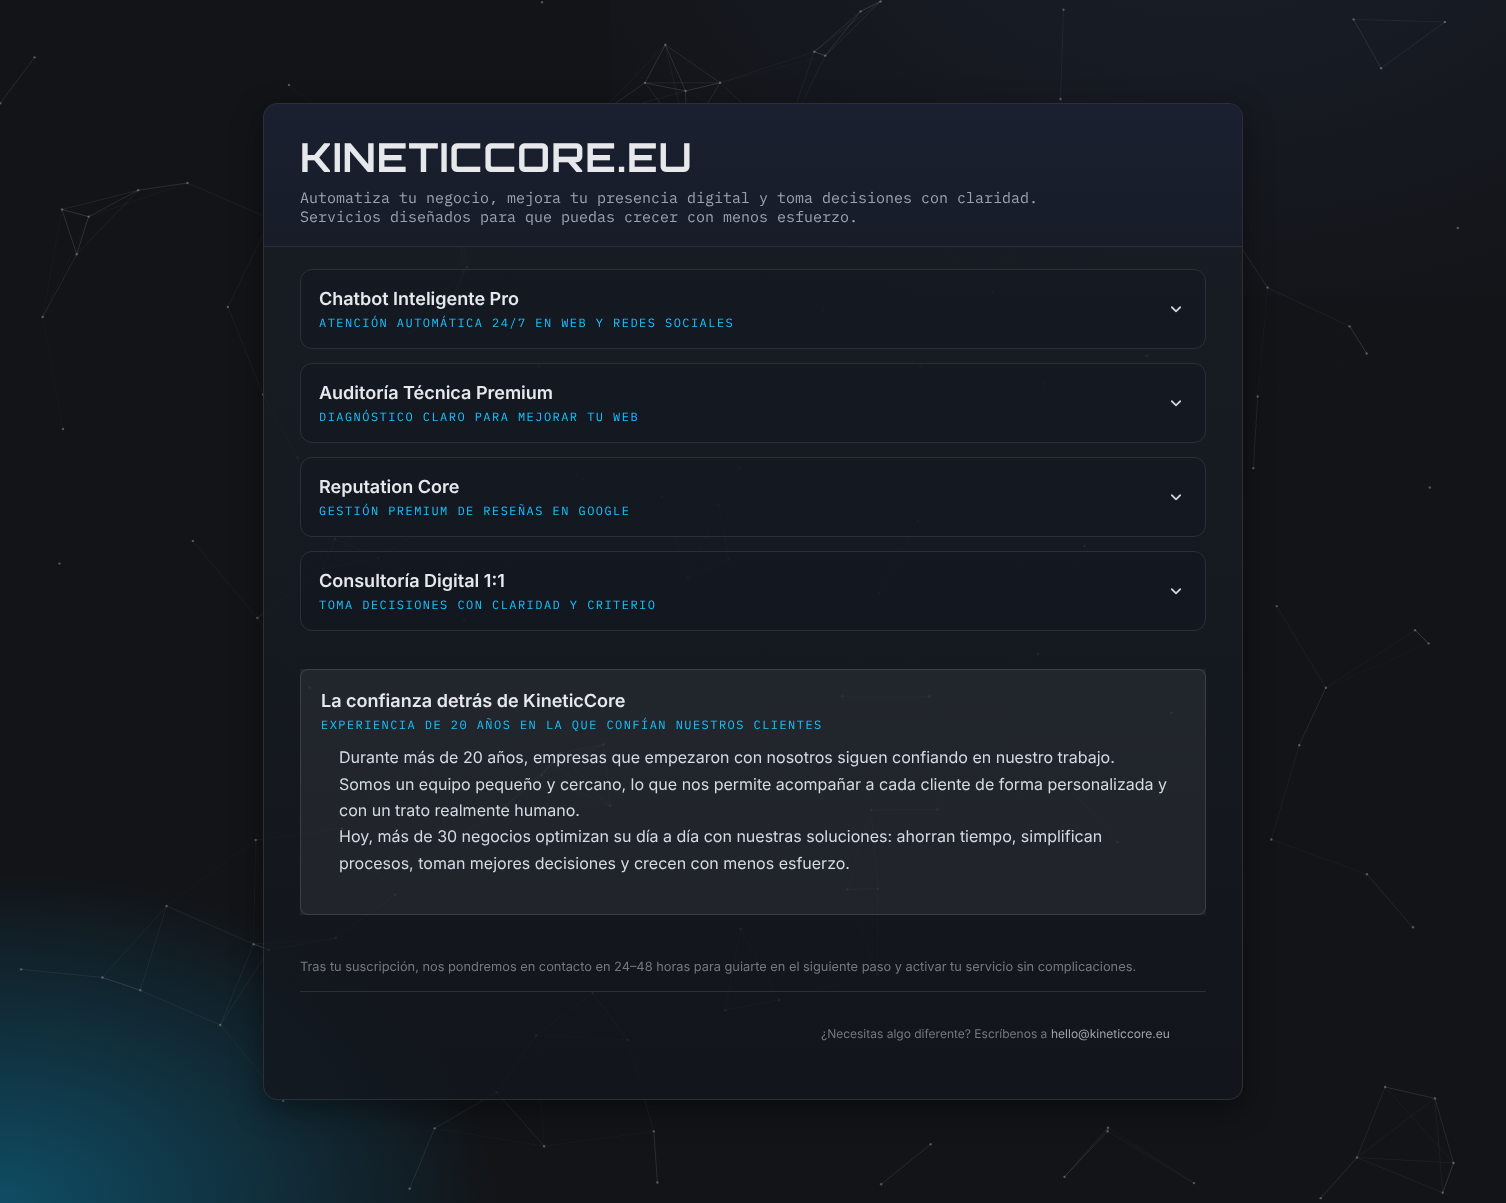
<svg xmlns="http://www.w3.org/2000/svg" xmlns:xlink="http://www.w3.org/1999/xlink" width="1506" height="1203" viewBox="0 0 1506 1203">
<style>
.cls-1{font:bold 40px Orbitron;letter-spacing:1px;fill:#e6e8ec}
.cls-2{font:15px IBM Plex Mono;fill:#9aa3b2}
.cls-3{font:600 18px Inter;fill:#e6e8ec}
.cls-4{font:12px IBM Plex Mono;letter-spacing:1.45px;fill:#19c2ff}
.cls-5{font:16px Inter;fill:#d5dbe5}
.cls-6{font:12.8px Inter;fill:#76787c}
.cls-7{font:12px Inter;fill:#76787c}
.cls-8{font:12px Inter;fill:#a0a2a5}
</style>
<defs>
<radialGradient id="g1" gradientUnits="userSpaceOnUse" cx="0" cy="0" r="1" gradientTransform="matrix(900 0 0 600 0 1203)"><stop offset="0" stop-color="#0f4d64"/><stop offset="0.55" stop-color="#121418"/></radialGradient>
<radialGradient id="g2" gradientUnits="userSpaceOnUse" cx="0" cy="0" r="1" gradientTransform="matrix(1200 0 0 800 1205 -120)"><stop offset="0" stop-color="#1a1f29"/><stop offset="0.6" stop-color="#1a1f29" stop-opacity="0"/></radialGradient>
<clipPath id="clip1"><path d="M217 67H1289V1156H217ZM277 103H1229C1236.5 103 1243 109.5 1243 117V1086C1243 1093.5 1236.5 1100 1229 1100H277C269.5 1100 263 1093.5 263 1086V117C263 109.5 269.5 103 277 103Z" clip-rule="evenodd"/></clipPath>
<clipPath id="clip2"><rect x="263" y="103" width="980" height="997" rx="14"/></clipPath>
<linearGradient id="g3" gradientUnits="userSpaceOnUse" x1="753" y1="104" x2="753" y2="1099"><stop offset="0" stop-color="#1a1f27" stop-opacity="0.8"/><stop offset="1" stop-color="#12161d" stop-opacity="0.8"/></linearGradient>
<linearGradient id="g4" gradientUnits="userSpaceOnUse" x1="753" y1="104" x2="753" y2="246"><stop offset="0" stop-color="#1a2030"/><stop offset="1" stop-color="#171c28"/></linearGradient>
</defs>
<rect width="100%" height="100%" fill="#ffffff"/>
<rect fill="url(#g1)" x="0" y="0" width="1506" height="1203"/>
<rect fill="url(#g2)" x="611" y="0" width="895" height="296"/>
<image xlink:href="image0.png" x="0" y="0" width="1459" height="1200"/>
<g clip-path="url(#clip1)">
<rect fill="#000000" fill-opacity="0.4" filter="blur(15px)" x="263" y="113" width="980" height="997" rx="14"/>
</g>
<g clip-path="url(#clip2)">
<rect fill="url(#g3)" x="263" y="104" width="980" height="995"/>
</g>
<rect fill="none" stroke="#2a2f3a" x="263.5" y="103.5" width="979" height="996" rx="13.5"/>
<path fill="url(#g4)" d="M277 104H1229C1236 104 1242 110 1242 117V246H264V117C264 110 270 104 277 104Z"/>
<rect fill="#2a2f3a" x="264" y="246" width="978" height="1"/>
<rect fill="#121722" fill-opacity="0.6" stroke="#2a2f3a" x="300.5" y="269.5" width="905" height="79" rx="11.5"/>
<image xlink:href="image1.png" x="1170" y="306" width="12" height="7"/>
<rect fill="#121722" fill-opacity="0.6" stroke="#2a2f3a" x="300.5" y="363.5" width="905" height="79" rx="11.5"/>
<image xlink:href="image2.png" x="1170" y="400" width="12" height="7"/>
<rect fill="#121722" fill-opacity="0.6" stroke="#2a2f3a" x="300.5" y="457.5" width="905" height="79" rx="11.5"/>
<image xlink:href="image3.png" x="1170" y="494" width="12" height="7"/>
<rect fill="#121722" fill-opacity="0.6" stroke="#2a2f3a" x="300.5" y="551.5" width="905" height="79" rx="11.5"/>
<image xlink:href="image4.png" x="1170" y="588" width="12" height="7"/>
<rect fill="#ffffff" fill-opacity="0.06" x="300" y="669" width="906" height="246"/>
<rect fill="none" stroke="#ffffff" stroke-opacity="0.12" x="300.5" y="669.5" width="905" height="245" rx="7.5"/>
<rect fill="#2a2f3a" x="300" y="991" width="906" height="1"/>
<text class="cls-1" x="300" y="172">KINETICCORE.EU</text>
<text class="cls-2"><tspan x="300" y="203">Automatiza tu negocio, mejora tu presencia digital y toma decisiones con claridad.</tspan><tspan x="300" y="222">Servicios diseñados para que puedas crecer con menos esfuerzo.</tspan></text>
<text class="cls-3" x="319" y="305">Chatbot Inteligente Pro</text>
<text class="cls-4" x="319" y="327">ATENCIÓN AUTOMÁTICA 24/7 EN WEB Y REDES SOCIALES</text>
<text class="cls-3" x="319" y="399">Auditoría Técnica Premium</text>
<text class="cls-4" x="319" y="421">DIAGNÓSTICO CLARO PARA MEJORAR TU WEB</text>
<text class="cls-3" x="319" y="493">Reputation Core</text>
<text class="cls-4" x="319" y="515">GESTIÓN PREMIUM DE RESEÑAS EN GOOGLE</text>
<text class="cls-3" x="319" y="587">Consultoría Digital 1:1</text>
<text class="cls-4" x="319" y="609">TOMA DECISIONES CON CLARIDAD Y CRITERIO</text>
<text class="cls-3" x="321" y="707">La confianza detrás de KineticCore</text>
<text class="cls-4" x="321" y="729">EXPERIENCIA DE 20 AÑOS EN LA QUE CONFÍAN NUESTROS CLIENTES</text>
<text class="cls-5"><tspan x="339" y="763">Durante más de 20 años, empresas que empezaron con nosotros siguen confiando en nuestro trabajo.</tspan><tspan x="339" y="790">Somos un equipo pequeño y cercano, lo que nos permite acompañar a cada cliente de forma personalizada y</tspan><tspan x="339" y="816">con un trato realmente humano.</tspan><tspan x="339" y="842">Hoy, más de 30 negocios optimizan su día a día con nuestras soluciones: ahorran tiempo, simplifican</tspan><tspan x="339" y="869">procesos, toman mejores decisiones y crecen con menos esfuerzo.</tspan></text>
<text class="cls-6" x="300" y="971">Tras tu suscripción, nos pondremos en contacto en 24–48 horas para guiarte en el siguiente paso y activar tu servicio sin complicaciones.</text>
<text class="cls-7" x="821" y="1038">¿Necesitas algo diferente? Escríbenos a</text>
<text class="cls-8" x="1051" y="1038">hello@kineticcore.eu</text>
</svg>
